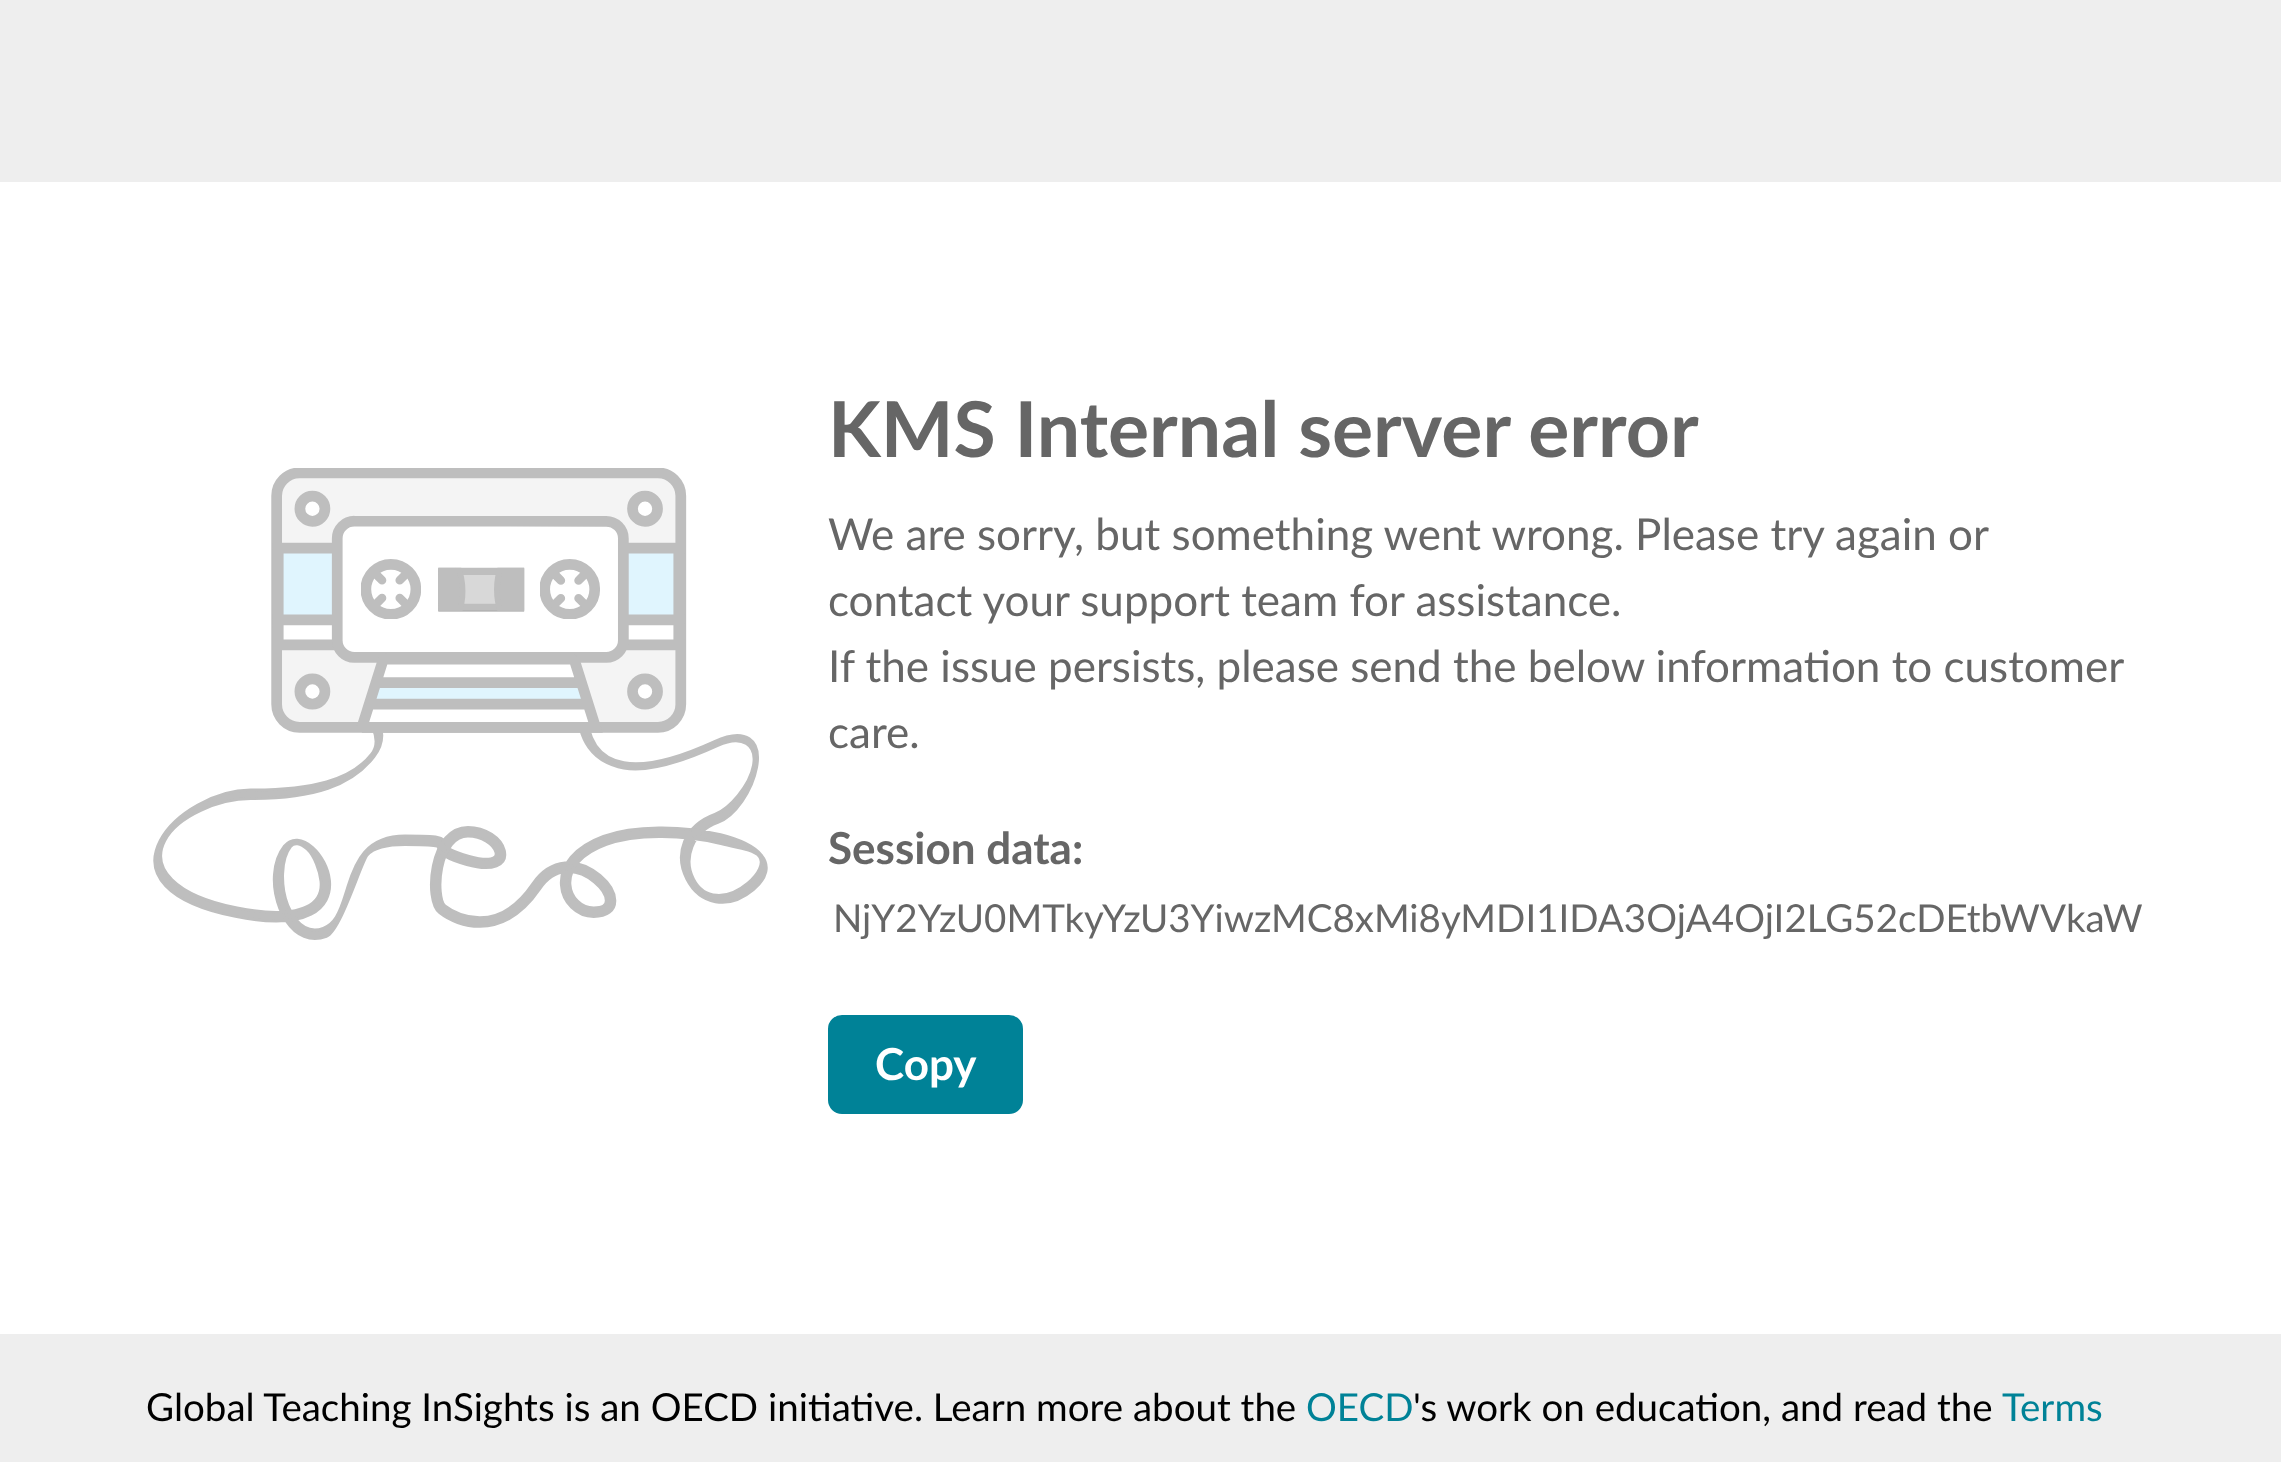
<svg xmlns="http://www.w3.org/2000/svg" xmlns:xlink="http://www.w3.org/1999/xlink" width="2281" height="1462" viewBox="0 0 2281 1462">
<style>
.cls-1{font:bold 77px Lato;fill:#666666}
.cls-2{font:44px Lato;fill:#666666}
.cls-3{font:bold 44px Lato;fill:#666666}
.cls-4{font:38.5px Lato;fill:#666666}
.cls-5{font:bold 44px Lato;fill:#ffffff}
.cls-6{font:38.5px Lato;fill:#000000}
.cls-7{font:38.5px Lato;fill:#008297}
</style>
<rect width="100%" height="100%" fill="#ffffff"/>
<rect fill="#eeeeee" x="0" y="0" width="2281" height="182"/>
<image xlink:href="image0.png" x="153" y="468" width="615" height="472"/>
<rect fill="#008297" stroke="#008297" stroke-width="3" x="829.5" y="1016.5" width="192" height="96" rx="12.5"/>
<rect fill="#eeeeee" x="0" y="1334" width="2281" height="128"/>
<text class="cls-1" x="828" y="457">KMS Internal server error</text>
<text class="cls-2"><tspan x="828" y="550">We are sorry, but something went wrong. Please try again or</tspan><tspan x="828" y="616">contact your support team for assistance.</tspan><tspan x="828" y="682">If the issue persists, please send the below information to customer</tspan><tspan x="828" y="748">care.</tspan></text>
<text class="cls-3" x="828" y="864">Session data:</text>
<text class="cls-4" x="833" y="932">NjY2YzU0MTkyYzU3YiwzMC8xMi8yMDI1IDA3OjA4OjI2LG52cDEtbWVkaW</text>
<text class="cls-5" x="875" y="1080">Copy</text>
<text class="cls-6" x="146" y="1421">Global Teaching InSights is an OECD initiative. Learn more about the</text>
<text class="cls-7" x="1306" y="1421">OECD</text>
<text class="cls-6" x="1413" y="1421">'s work on education, and read the</text>
<text class="cls-7" x="2002" y="1421">Terms</text>
</svg>
